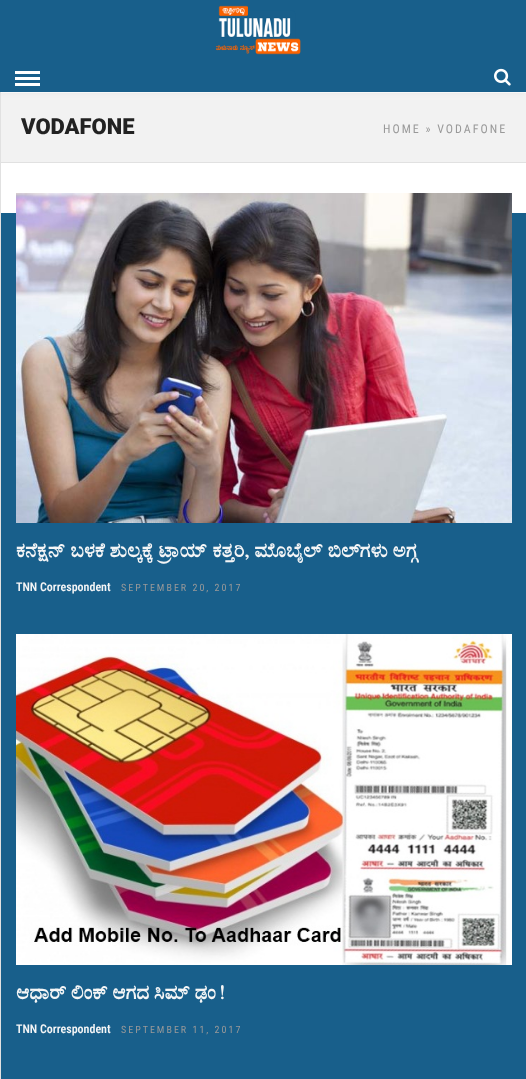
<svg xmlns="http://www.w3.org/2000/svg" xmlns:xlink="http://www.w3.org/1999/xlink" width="526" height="1079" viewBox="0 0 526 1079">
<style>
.cls-1{font:900 22px Roboto;fill:#222222}
.cls-2{font:12px Roboto Condensed;letter-spacing:2px;fill:#999999}
.cls-3{font:bold 20px FreeSerif;fill:#f4f5f6}
.cls-4{font:600 12px Roboto Condensed;fill:#f4f5f6}
.cls-5{font:10px Roboto Condensed;letter-spacing:2px;fill:#999999}
</style>
<rect width="100%" height="100%" fill="#ffffff"/>
<rect fill="none" stroke="#e1e1e1" x="0.5" y="0.5" width="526" height="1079"/>
<rect fill="#f2f2f2" x="1" y="93" width="525" height="69"/>
<rect fill="#bebebe" fill-opacity="0.2" filter="blur(2.5px)" x="0" y="1" width="526" height="92"/>
<rect fill="#185f8b" x="0" y="0" width="526" height="92"/>
<image xlink:href="image0.png" x="215" y="5" width="86" height="50"/>
<rect fill="#ffffff" x="15" y="71" width="25" height="3"/>
<rect fill="#ffffff" x="15" y="77" width="25" height="3"/>
<rect fill="#ffffff" x="15" y="83" width="25" height="3"/>
<image xlink:href="image1.png" x="494" y="68" width="17" height="18"/>
<rect fill="#e1e1e1" x="1" y="162" width="525" height="1"/>
<rect fill="#185f8b" x="1" y="213" width="525" height="866"/>
<image xlink:href="image2.png" x="16" y="193" width="496" height="330"/>
<image xlink:href="image3.png" x="16" y="634" width="496" height="331"/>
<text class="cls-1" x="21" y="134">VODAFONE</text>
<text class="cls-2" x="383" y="133">HOME » VODAFONE</text>
<text class="cls-3" x="16" y="557">ಕನೆಕ್ಷನ್ ಬಳಕೆ ಶುಲ್ಕಕ್ಕೆ ಟ್ರಾಯ್ ಕತ್ತರಿ, ಮೊಬೈಲ್ ಬಿಲ್‍ಗಳು ಅಗ್ಗ</text>
<text class="cls-4" x="16" y="591">TNN Correspondent</text>
<text class="cls-5" x="121" y="591">SEPTEMBER 20, 2017</text>
<text class="cls-3" x="16" y="999" word-spacing="-0.5">ಆಧಾರ್ ಲಿಂಕ್ ಆಗದ ಸಿಮ್ ಢಂ!</text>
<text class="cls-4" x="16" y="1033">TNN Correspondent</text>
<text class="cls-5" x="121" y="1033">SEPTEMBER 11, 2017</text>
</svg>
